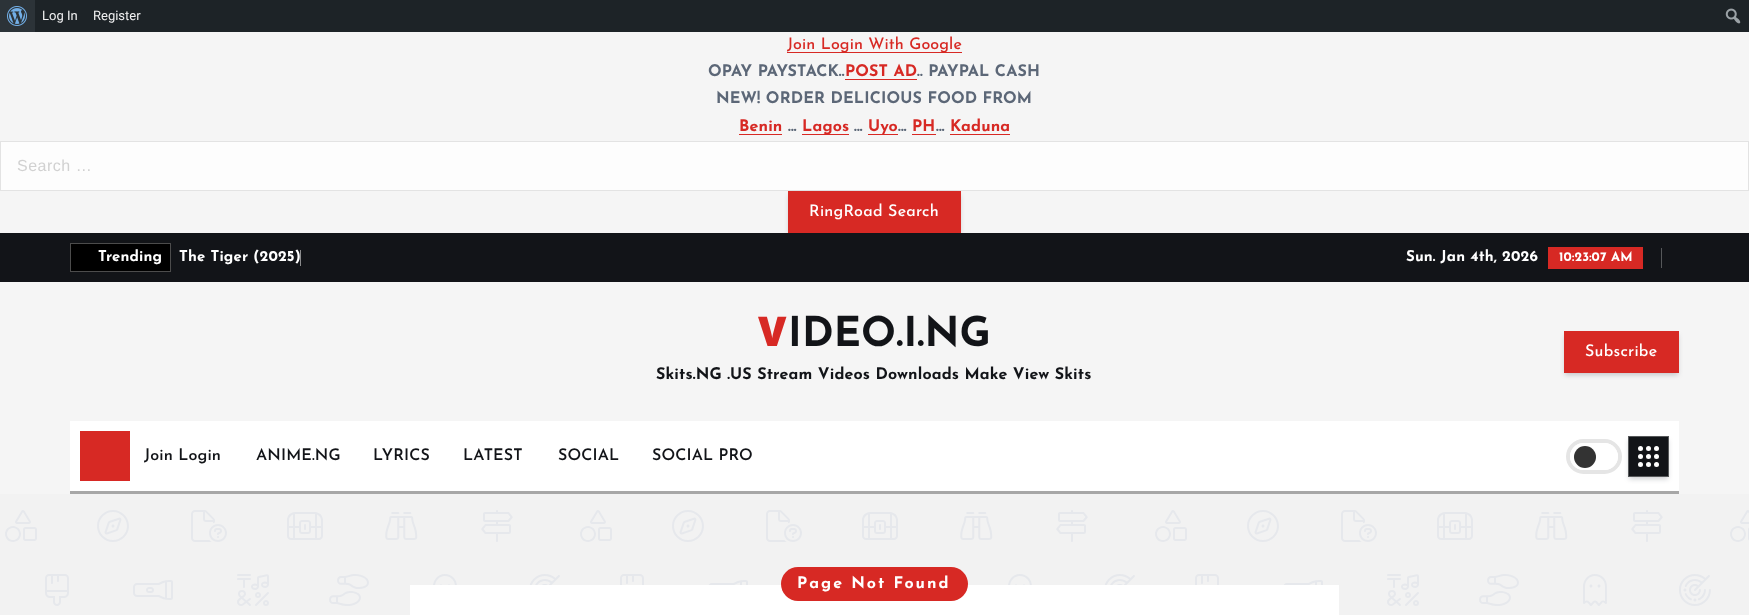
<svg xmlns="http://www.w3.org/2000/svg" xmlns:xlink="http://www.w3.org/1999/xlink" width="1749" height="615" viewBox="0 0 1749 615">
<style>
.cls-1{font:13px Roboto;fill:#f0f0f1}
.cls-2{font:bold 16px Josefin Sans;letter-spacing:0.15px;fill:#5c6777}
.cls-3{font:bold 16px Josefin Sans;letter-spacing:0.15px;fill:#d72924}
.cls-4{font:16px Liberation Sans;letter-spacing:0.5px;fill:#d1d1d1}
.cls-5{font:500 16px Josefin Sans;letter-spacing:0.25px;fill:#ffffff}
.cls-6{font:bold 15px Josefin Sans;letter-spacing:0.15px;fill:#ffffff}
.cls-7{font:bold 13px Josefin Sans;letter-spacing:0.15px;fill:#ffffff}
.cls-8{font:900 41px Noto Sans;letter-spacing:0.15px;fill:#d72924}
.cls-9{font:bold 41px Josefin Sans;letter-spacing:0.15px;fill:#121418}
.cls-10{font:bold 16px Josefin Sans;letter-spacing:0.15px;fill:#121418}
.cls-11{font:600 16px Josefin Sans;letter-spacing:0.15px;fill:#121418}
.cls-12{font:bold 16px Josefin Sans;letter-spacing:2px;fill:#ffffff}
.cls-13{font:500 16px Josefin Sans;letter-spacing:0.15px;fill:#d72924}
</style>
<rect width="100%" height="100%" fill="#f5f5f5"/>
<rect fill="#1d2327" x="35" y="0" width="1714" height="32"/>
<rect fill="#2c3338" x="0" y="0" width="35" height="32"/>
<image xlink:href="image0.png" x="7" y="6" width="20" height="20"/>
<image xlink:href="image1.png" x="1725" y="8" width="16" height="16"/>
<rect fill="#d72924" x="739" y="134" width="43" height="1"/>
<rect fill="#d72924" x="802" y="134" width="47" height="1"/>
<rect fill="#d72924" x="868" y="134" width="30" height="1"/>
<rect fill="#d72924" x="912" y="134" width="24" height="1"/>
<rect fill="#d72924" x="950" y="134" width="60" height="1"/>
<rect fill="#fdfdfd" stroke="#e3e3e3" x="0.5" y="141.5" width="1748" height="49"/>
<rect fill="#070a19" fill-opacity="0.2" filter="blur(2.5px)" x="789" y="195" width="171" height="40"/>
<rect fill="#d72924" x="788" y="191" width="173" height="42"/>
<rect fill="#121418" x="0" y="233" width="1749" height="49"/>
<rect fill="#000000" stroke="#4c4c4c" x="70.5" y="243.5" width="100" height="28"/>
<rect fill="#d72924" x="1548" y="247" width="95" height="22"/>
<rect fill="#56585a" x="1661" y="248" width="1" height="20"/>
<rect fill="#070a19" fill-opacity="0.2" filter="blur(2.5px)" x="1565" y="335" width="113" height="40"/>
<rect fill="#d72924" x="1564" y="331" width="115" height="42"/>
<rect fill="#ffffff" x="70" y="421" width="1609" height="70"/>
<rect fill="#a7a7a7" x="70" y="491" width="1609" height="3"/>
<rect fill="#d72924" x="80" y="431" width="50" height="50"/>
<rect fill="none" stroke="#e5e5e5" stroke-width="4" x="1568" y="441" width="52" height="31" rx="15.5"/>
<rect fill="#ffffff" x="1570" y="443" width="48" height="27" rx="13.5"/>
<circle fill="#333333" cx="1585" cy="457" r="11"/>
<rect fill="#070a19" fill-opacity="0.2" filter="blur(2.5px)" x="1629" y="440" width="39" height="39"/>
<rect fill="#121418" stroke="#56585a" x="1628.5" y="436.5" width="40" height="40"/>
<circle fill="#ffffff" cx="1640.5" cy="448.5" r="2.5"/>
<circle fill="#ffffff" cx="1648.5" cy="448.5" r="2.5"/>
<circle fill="#ffffff" cx="1656.5" cy="448.5" r="2.5"/>
<circle fill="#ffffff" cx="1640.5" cy="456.5" r="2.5"/>
<circle fill="#ffffff" cx="1648.5" cy="456.5" r="2.5"/>
<circle fill="#ffffff" cx="1656.5" cy="456.5" r="2.5"/>
<circle fill="#ffffff" cx="1640.5" cy="464.5" r="2.5"/>
<circle fill="#ffffff" cx="1648.5" cy="464.5" r="2.5"/>
<circle fill="#ffffff" cx="1656.5" cy="464.5" r="2.5"/>
<rect fill="#f2f2f2" x="0" y="494" width="1749" height="121"/>
<image xlink:href="image2.png" x="5" y="510" width="1744" height="96"/>
<rect fill="#ffffff" x="410" y="585" width="929" height="30"/>
<rect fill="#d72924" x="781" y="567" width="187" height="34" rx="17"/>
<rect fill="#d72924" x="787" y="52" width="175" height="1"/>
<rect fill="#d72924" x="845" y="79" width="72" height="1"/>
<text class="cls-1" x="42" y="20">Log In</text>
<text class="cls-1" x="93" y="20">Register</text>
<text class="cls-2" x="716" y="103">NEW! ORDER DELICIOUS FOOD FROM</text>
<text class="cls-3" x="739" y="131">Benin</text>
<text class="cls-2" x="788" y="131">...</text>
<text class="cls-3" x="802" y="131">Lagos</text>
<text class="cls-2" x="854" y="131">...</text>
<text class="cls-3" x="868" y="131">Uyo</text>
<text class="cls-2" x="898" y="131">...</text>
<text class="cls-3" x="912" y="131">PH</text>
<text class="cls-2" x="936" y="131">...</text>
<text class="cls-3" x="950" y="131">Kaduna</text>
<text class="cls-4" x="17" y="171">Search …</text>
<text class="cls-5" x="809" y="216">RingRoad Search</text>
<text class="cls-6" x="98" y="261">Trending</text>
<text class="cls-6" x="179" y="261">The Tiger (2025)</text>
<rect fill="#bdbdbd" fill-opacity="0.7" x="300" y="250" width="1" height="16"/>
<text class="cls-6" x="1406" y="261">Sun. Jan 4th, 2026</text>
<text class="cls-7" x="1559" y="261">10:23:07 AM</text>
<text class="cls-8" x="758" y="346">V</text>
<text class="cls-9" x="788" y="346">IDEO.I.NG</text>
<text class="cls-10" x="656" y="379">Skits.NG .US Stream Videos Downloads Make View Skits</text>
<text class="cls-5" x="1585" y="356">Subscribe</text>
<text class="cls-11" x="144" y="460">Join Login</text>
<text class="cls-11" x="256" y="460">ANIME.NG</text>
<text class="cls-11" x="373" y="460">LYRICS</text>
<text class="cls-11" x="463" y="460">LATEST</text>
<text class="cls-11" x="558" y="460">SOCIAL</text>
<text class="cls-11" x="652" y="460">SOCIAL PRO</text>
<text class="cls-12" x="797" y="588">Page Not Found</text>
<text class="cls-13" x="787" y="49">Join Login With Google</text>
<text class="cls-2" x="708" y="76">OPAY PAYSTACK..</text>
<text class="cls-3" x="845" y="76">POST AD</text>
<text class="cls-2" x="917" y="76">.. PAYPAL CASH</text>
</svg>
